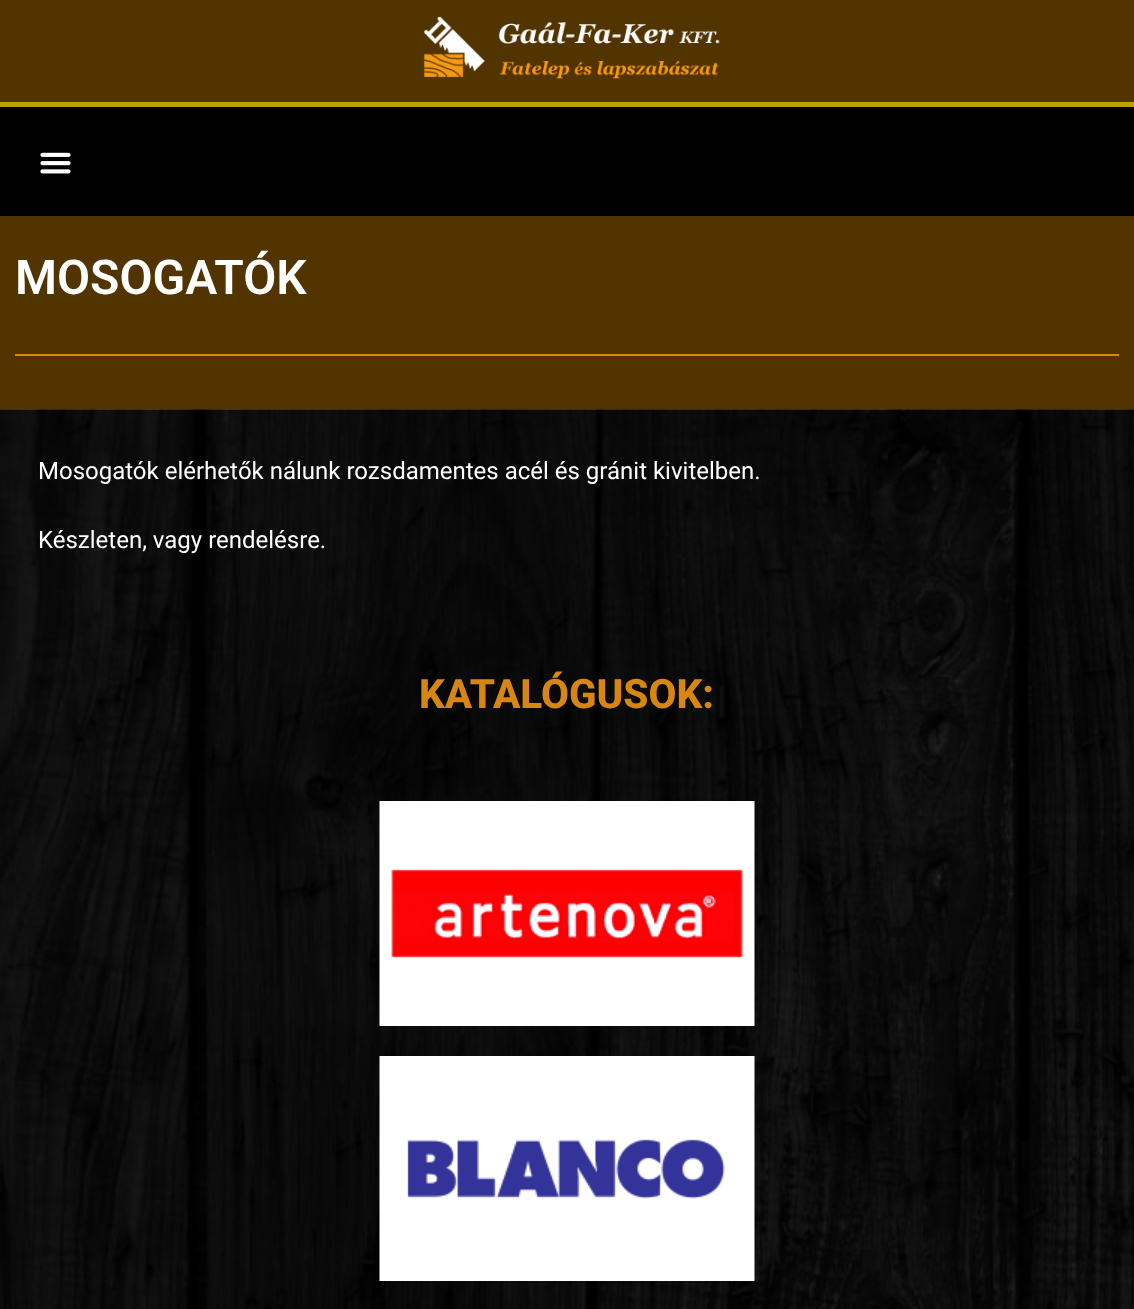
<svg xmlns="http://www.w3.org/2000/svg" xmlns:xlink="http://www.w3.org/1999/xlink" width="1134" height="1309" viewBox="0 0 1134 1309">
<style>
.cls-1{font:600 48px Roboto;fill:#ffffff}
.cls-2{font:24px Roboto;fill:#ffffff}
.cls-3{font:800 40.5px Roboto;fill:#d78612}
</style>
<rect width="100%" height="100%" fill="#523400"/>
<image xlink:href="image0.png" x="424" y="16" width="296" height="63"/>
<rect fill="#000000" x="0" y="107" width="1134" height="109"/>
<rect fill="#bf9f00" x="0" y="102" width="1134" height="5"/>
<image xlink:href="image1.png" x="40" y="152" width="31" height="22"/>
<rect fill="#d78612" x="15" y="354" width="1104" height="2"/>
<image xlink:href="image2.png" x="0" y="409" width="1134" height="900"/>
<image xlink:href="image3.png" x="379" y="801" width="376" height="225"/>
<image xlink:href="image4.png" x="379" y="1056" width="376" height="225"/>
<text class="cls-1" x="15" y="294">MOSOGATÓK</text>
<text class="cls-2" x="38" y="479">Mosogatók elérhetők nálunk rozsdamentes acél és gránit kivitelben.</text>
<text class="cls-2" x="38" y="548">Készleten, vagy rendelésre.</text>
<text class="cls-3" x="419" y="708">KATALÓGUSOK:</text>
</svg>
